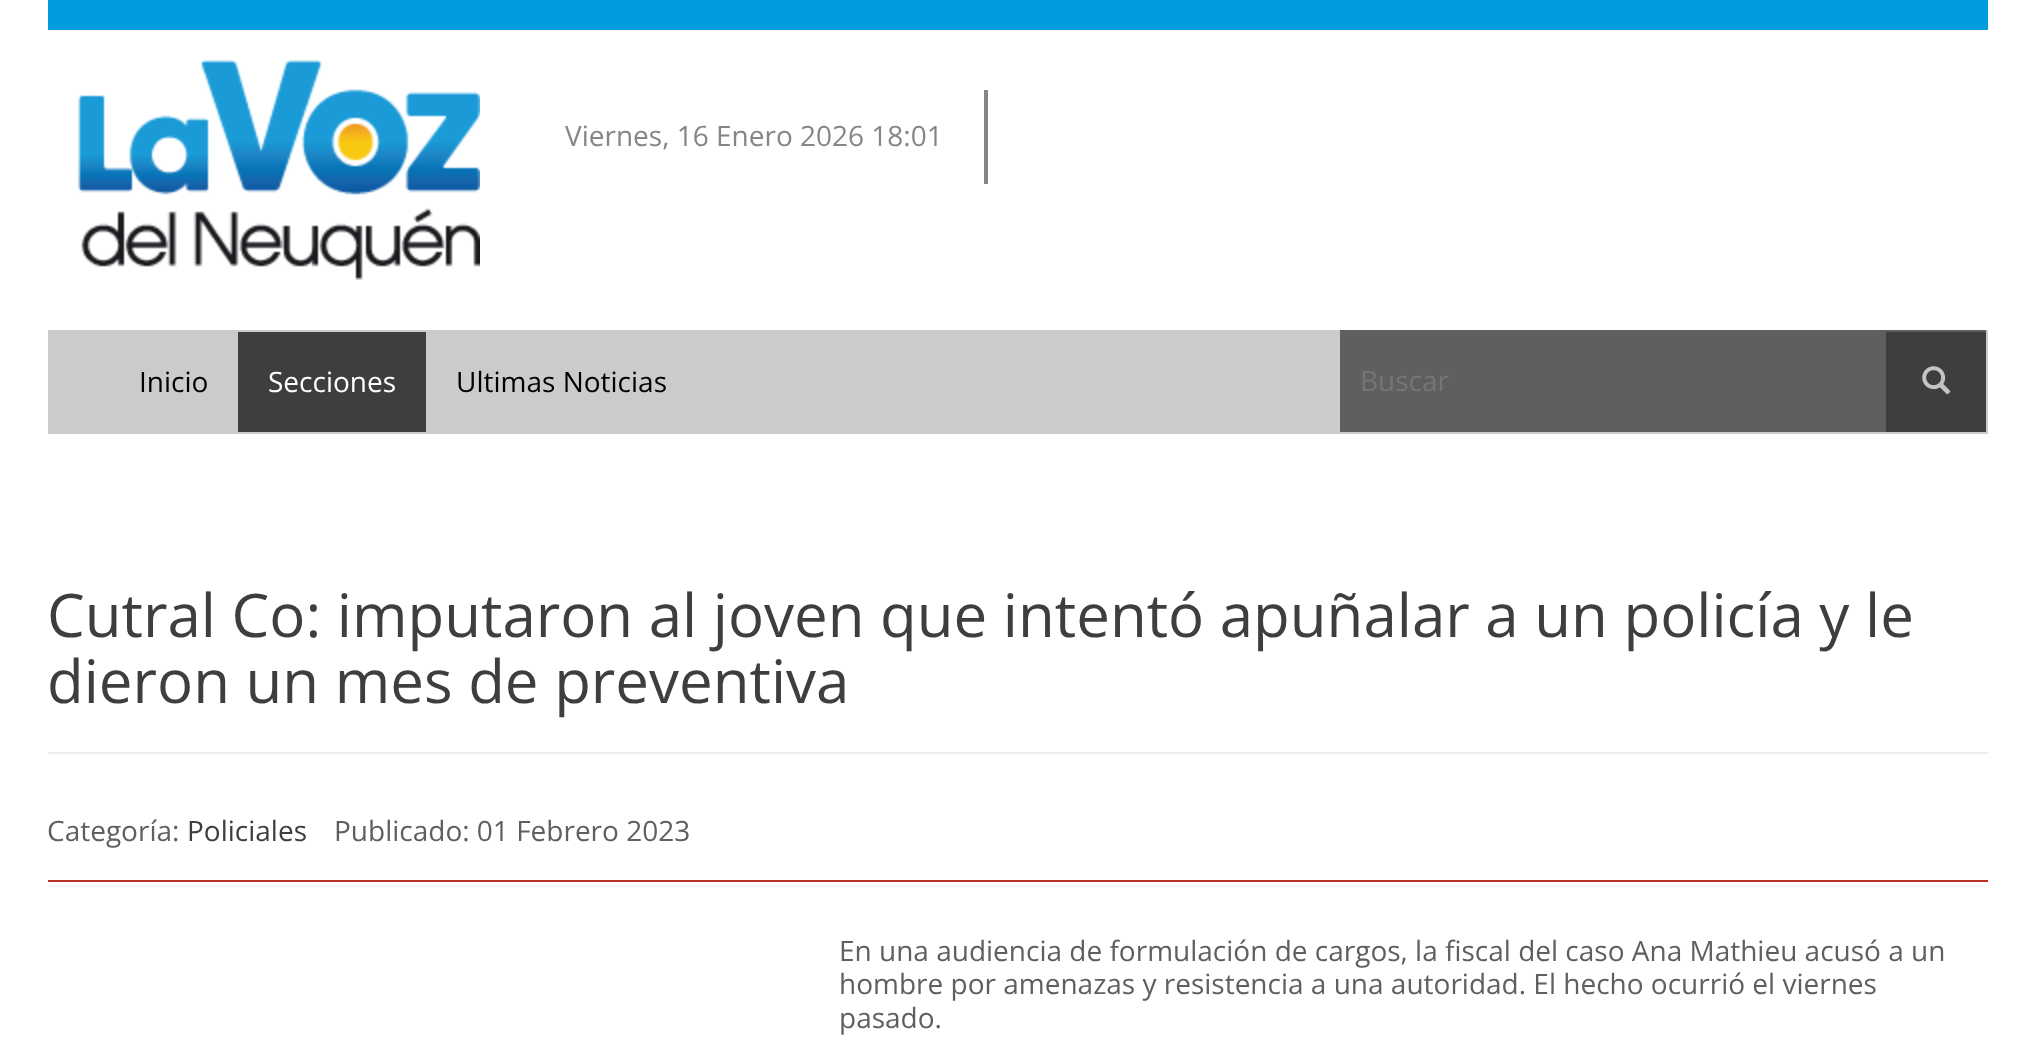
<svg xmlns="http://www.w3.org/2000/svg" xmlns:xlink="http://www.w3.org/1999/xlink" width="2034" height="1061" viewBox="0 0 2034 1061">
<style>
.cls-1{font:28px Open Sans;fill:#868686}
.cls-2{font:28px Open Sans;fill:#000000}
.cls-3{font:28px Open Sans;fill:#ffffff}
.cls-4{font:28px Open Sans;fill:#757575}
.cls-5{font:60px Open Sans;fill:#3e3e3e}
.cls-6{font:28px Open Sans;fill:#5f5f5f}
.cls-7{font:28px Open Sans;fill:#3e3e3e}
</style>
<rect width="100%" height="100%" fill="#ffffff"/>
<rect fill="#009cdd" x="48" y="0" width="1940" height="30"/>
<image xlink:href="image0.png" x="78" y="60" width="402" height="220"/>
<rect fill="#868686" x="984" y="90" width="4" height="94"/>
<rect fill="#cbcbcb" x="48" y="330" width="1940" height="104"/>
<rect fill="#3e3e3e" x="238" y="332" width="188" height="100"/>
<rect fill="#5f5f5f" x="1340" y="330" width="646" height="102"/>
<rect fill="#3e3e3e" x="1886" y="332" width="100" height="100"/>
<image xlink:href="image1.png" x="1922" y="366" width="29" height="29"/>
<rect fill="#eeeeee" x="48" y="752" width="1940" height="2"/>
<rect fill="#be322b" x="48" y="880" width="1940" height="2"/>
<text class="cls-1" x="565" y="146">Viernes, 16 Enero 2026 18:01</text>
<text class="cls-2" x="139" y="392">Inicio</text>
<text class="cls-3" x="268" y="392">Secciones</text>
<text class="cls-2" x="456" y="392">Ultimas Noticias</text>
<text class="cls-4" x="1360" y="391">Buscar</text>
<text class="cls-5"><tspan x="47" y="637">Cutral Co: imputaron al joven que intentó apuñalar a un policía y le</tspan><tspan x="47" y="703">dieron un mes de preventiva</tspan></text>
<text class="cls-6" x="47" y="841">Categoría:</text>
<text class="cls-7" x="187" y="841">Policiales</text>
<text class="cls-6" x="334" y="841">Publicado: 01 Febrero 2023</text>
<text class="cls-6"><tspan x="839" y="961">En una audiencia de formulación de cargos, la fiscal del caso Ana Mathieu acusó a un</tspan><tspan x="839" y="994">hombre por amenazas y resistencia a una autoridad. El hecho ocurrió el viernes</tspan><tspan x="839" y="1028">pasado.</tspan></text>
</svg>
